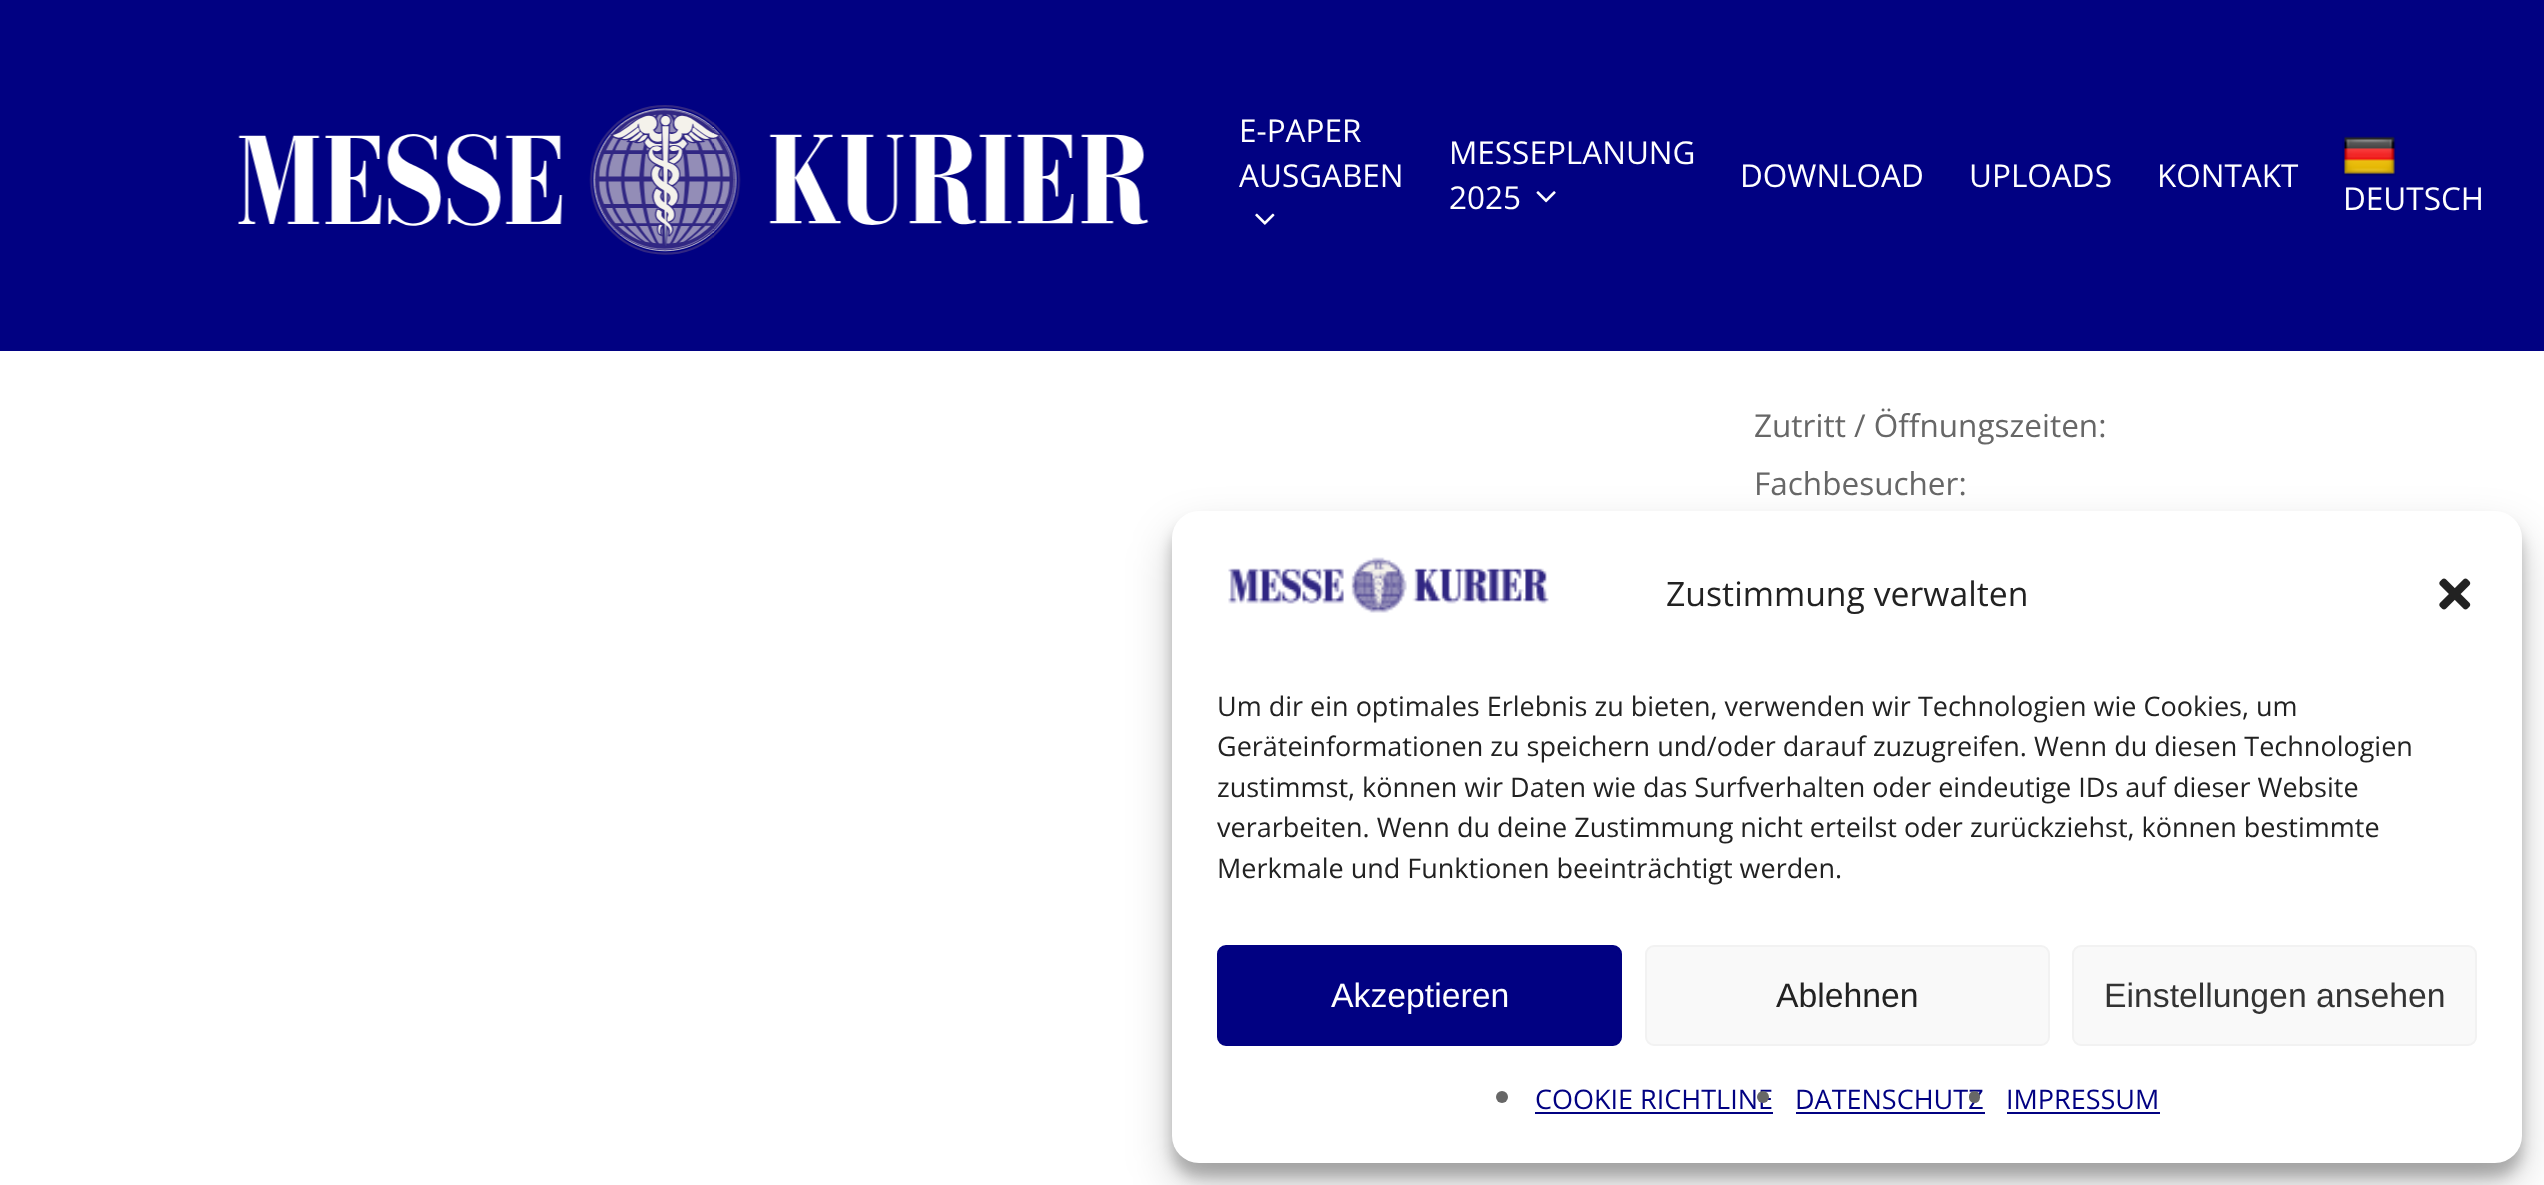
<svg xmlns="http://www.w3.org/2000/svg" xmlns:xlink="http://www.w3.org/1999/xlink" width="2544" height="1185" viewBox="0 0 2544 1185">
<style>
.cls-1{font:31.5px Open Sans;fill:#ffffff}
.cls-2{font:31.5px Open Sans;fill:#676767}
.cls-3{font:33.75px Open Sans;fill:#222222}
.cls-4{font:27px Open Sans;fill:#222222}
.cls-5{font:33.75px Liberation Sans;fill:#ffffff}
.cls-6{font:33.75px Liberation Sans;fill:#222222}
.cls-7{font:33.75px Liberation Sans;fill:#333333}
.cls-8{font:27px Open Sans;fill:#010182}
</style>
<rect width="100%" height="100%" fill="#ffffff"/>
<rect fill="#010182" x="0" y="0" width="2544" height="351"/>
<image xlink:href="image0.png" x="238" y="105" width="911" height="150"/>
<image xlink:href="image1.png" x="1255" y="213" width="20" height="12"/>
<image xlink:href="image2.png" x="1536" y="191" width="20" height="12"/>
<image xlink:href="image3.png" x="2342" y="136" width="54" height="40"/>
<rect fill="#000000" fill-opacity="0.23" filter="blur(7px)" x="1172" y="524" width="1350" height="653" rx="27"/>
<rect fill="#000000" fill-opacity="0.19" filter="blur(22.5px)" x="1172" y="533" width="1350" height="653" rx="27"/>
<rect fill="#ffffff" x="1172" y="511" width="1350" height="652" rx="27"/>
<image xlink:href="image4.png" x="1228" y="557" width="321" height="56"/>
<image xlink:href="image5.png" x="2439" y="578" width="32" height="32"/>
<rect fill="#010182" stroke="#010182" stroke-width="2" x="1218" y="946" width="403" height="99" rx="8"/>
<rect fill="#f9f9f9" stroke="#f2f2f2" stroke-width="2" x="1646" y="946" width="403" height="99" rx="8"/>
<rect fill="#f9f9f9" stroke="#f2f2f2" stroke-width="2" x="2073" y="946" width="403" height="99" rx="8"/>
<circle fill="#676767" cx="1502" cy="1097" r="6"/>
<rect fill="#010182" x="1535" y="1112" width="238" height="2"/>
<rect fill="#010182" x="1796" y="1112" width="189" height="2"/>
<rect fill="#010182" x="2007" y="1112" width="153" height="2"/>
<text class="cls-1"><tspan x="1239" y="142">E-PAPER</tspan><tspan x="1239" y="187">AUSGABEN</tspan></text>
<text class="cls-1"><tspan x="1449" y="164">MESSEPLANUNG</tspan><tspan x="1449" y="209">2025</tspan></text>
<text class="cls-1" x="1740" y="187">DOWNLOAD</text>
<text class="cls-1" x="1969" y="187">UPLOADS</text>
<text class="cls-1" x="2157" y="187">KONTAKT</text>
<text class="cls-1" x="2343" y="210">DEUTSCH</text>
<text class="cls-2"><tspan x="1754" y="437">Zutritt / Öffnungszeiten:</tspan><tspan x="1754" y="495">Fachbesucher:</tspan></text>
<text class="cls-3" x="1666" y="606">Zustimmung verwalten</text>
<text class="cls-4"><tspan x="1217" y="716">Um dir ein optimales Erlebnis zu bieten, verwenden wir Technologien wie Cookies, um</tspan><tspan x="1217" y="756">Geräteinformationen zu speichern und/oder darauf zuzugreifen. Wenn du diesen Technologien</tspan><tspan x="1217" y="797">zustimmst, können wir Daten wie das Surfverhalten oder eindeutige IDs auf dieser Website</tspan><tspan x="1217" y="837">verarbeiten. Wenn du deine Zustimmung nicht erteilst oder zurückziehst, können bestimmte</tspan><tspan x="1217" y="878">Merkmale und Funktionen beeinträchtigt werden.</tspan></text>
<text class="cls-5" x="1331" y="1007">Akzeptieren</text>
<text class="cls-6" x="1776" y="1007">Ablehnen</text>
<text class="cls-7" x="2104" y="1007">Einstellungen ansehen</text>
<text class="cls-8" x="1535" y="1109">COOKIE RICHTLINE</text>
<circle fill="#676767" cx="1763" cy="1097" r="6"/>
<text class="cls-8" x="1795" y="1109">DATENSCHUTZ</text>
<rect fill="#676767" x="1969" y="1091" width="11" height="12" rx="5.5"/>
<text class="cls-8" x="2006" y="1109">IMPRESSUM</text>
</svg>
